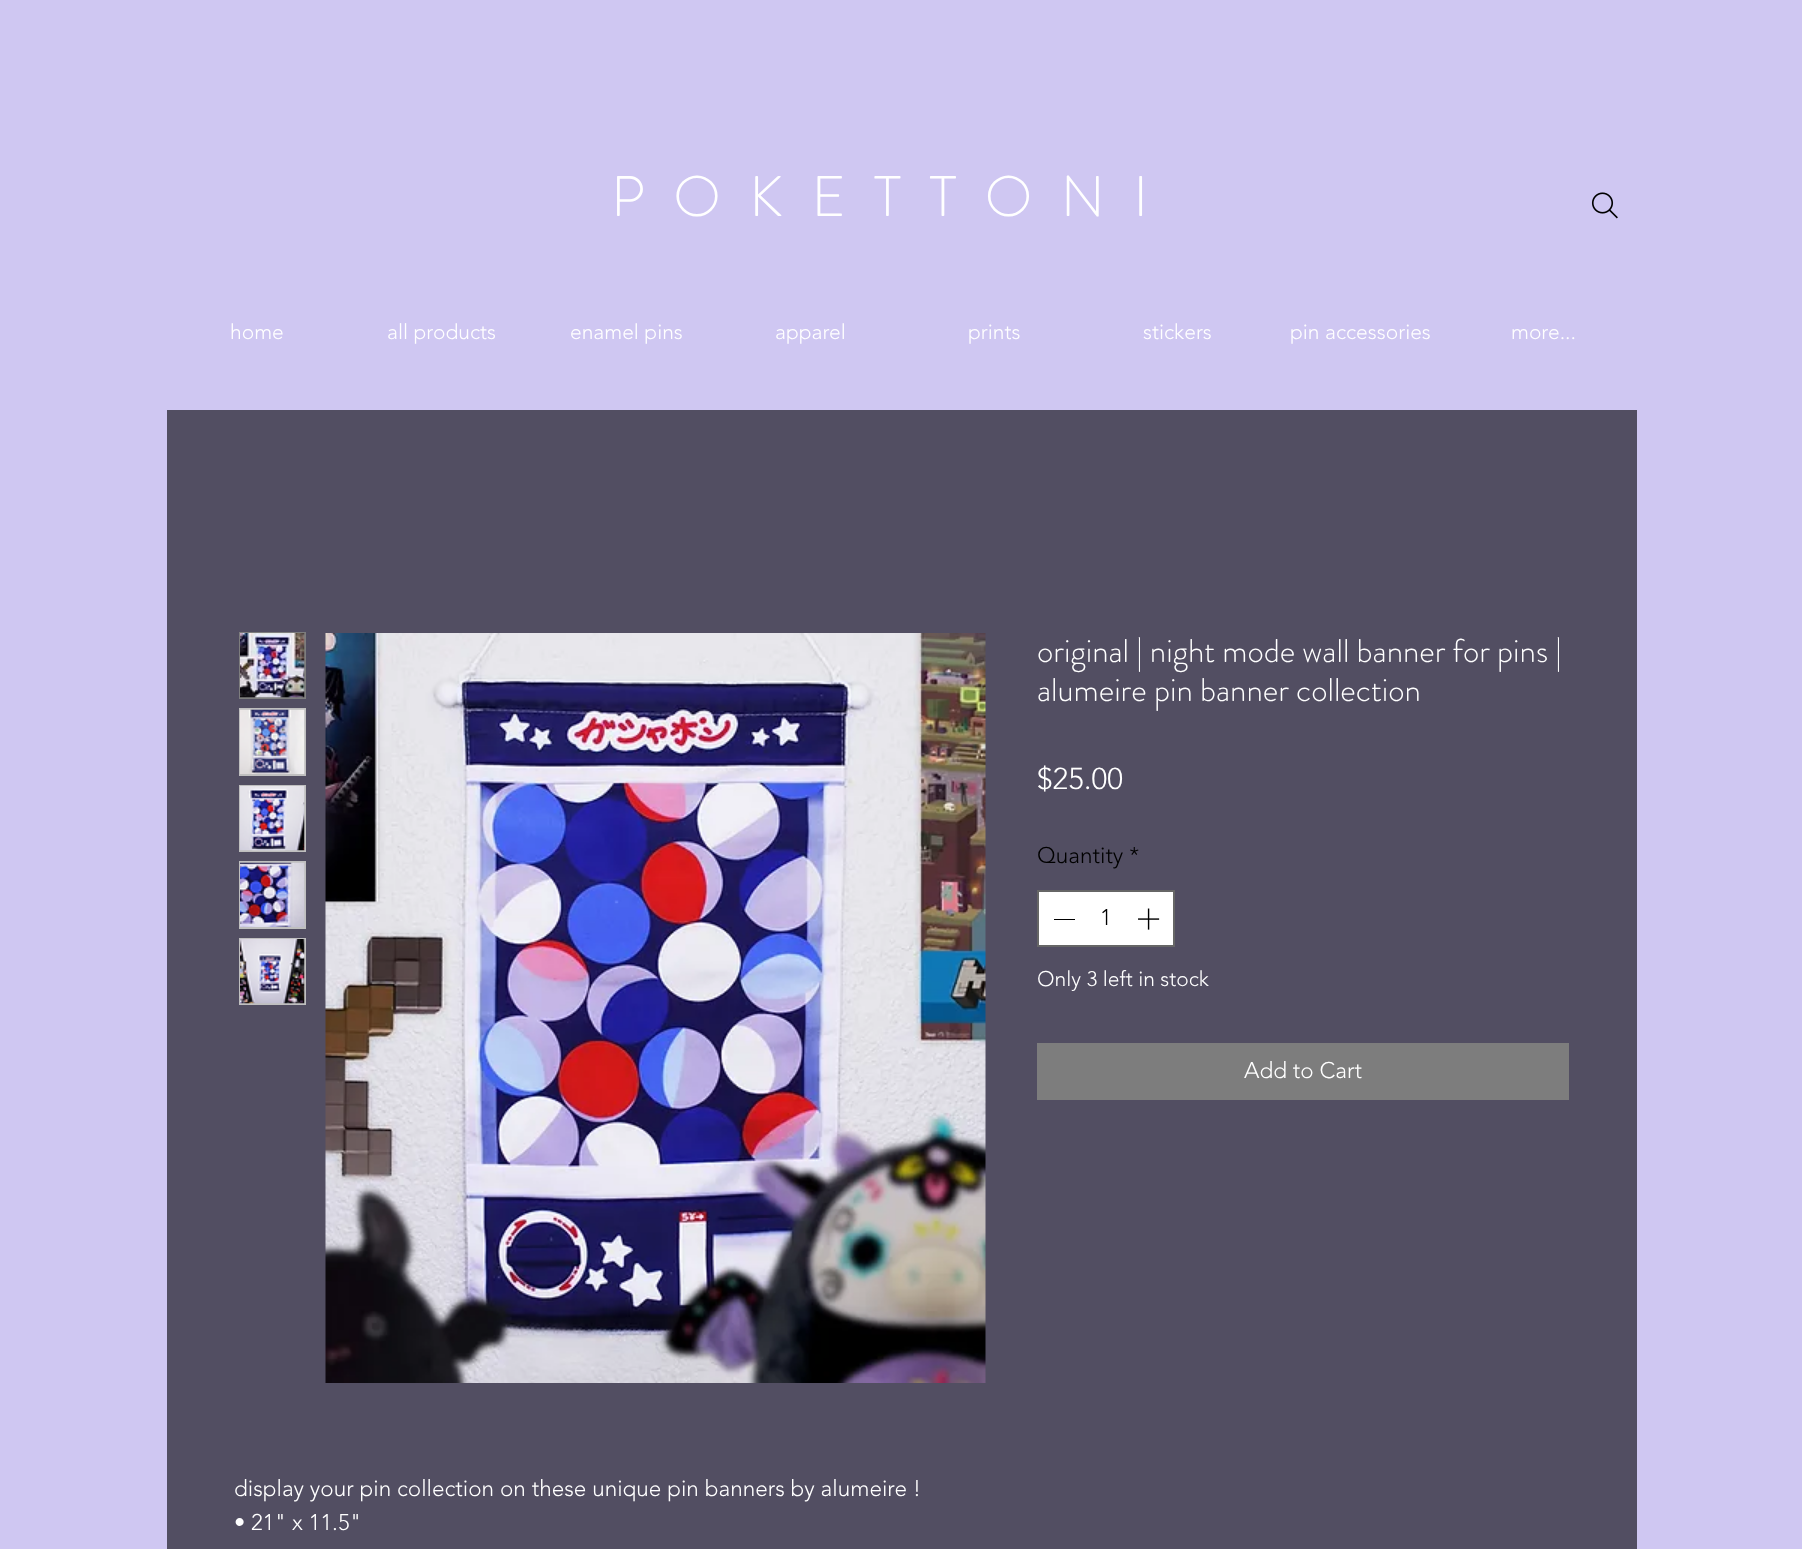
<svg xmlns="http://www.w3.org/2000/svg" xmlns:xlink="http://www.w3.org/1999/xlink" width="1802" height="1549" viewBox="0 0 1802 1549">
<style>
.cls-1{font:300 57px 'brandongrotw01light';letter-spacing:28.5px;fill:#ffffff}
.cls-2{font:300 21px 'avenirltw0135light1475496';fill:#ffffff}
.cls-3{font:300 33px 'brandongrotw01light';fill:#ffffff}
.cls-4{font:300 30px 'avenirltw0135light1475496';fill:#ffffff}
.cls-5{font:300 22.5px 'avenirltw0135light1475496';fill:#000000}
.cls-6{font:300 22.5px 'avenirltw0135light1475496';fill:#ffffff}
</style>
<rect width="100%" height="100%" fill="#cfc7f2"/>
<image xlink:href="image0.png" x="1591" y="192" width="27" height="27"/>
<rect fill="#524e62" x="167" y="410" width="1470" height="1139"/>
<rect fill="#ffffff" stroke="#666666" stroke-width="2" x="1038" y="891" width="136" height="55"/>
<rect fill="#000000" x="1054" y="919" width="21" height="1"/>
<image xlink:href="image1.png" x="1138" y="908" width="22" height="22"/>
<rect fill="#7d7d7d" x="1037" y="1043" width="532" height="57"/>
<rect fill="none" stroke="#7d7d7d" stroke-width="2" x="240" y="633" width="65" height="65"/>
<image xlink:href="image2.png" x="240" y="633" width="65" height="65"/>
<rect fill="none" stroke="#bfbfbf" stroke-width="2" x="240" y="709" width="65" height="66"/>
<image xlink:href="image3.png" x="240" y="709" width="65" height="65"/>
<rect fill="none" stroke="#bfbfbf" stroke-width="2" x="240" y="786" width="65" height="65"/>
<image xlink:href="image4.png" x="240" y="786" width="65" height="65"/>
<rect fill="none" stroke="#bfbfbf" stroke-width="2" x="240" y="862" width="65" height="66"/>
<image xlink:href="image5.png" x="240" y="862" width="65" height="65"/>
<rect fill="none" stroke="#bfbfbf" stroke-width="2" x="240" y="939" width="65" height="65"/>
<image xlink:href="image6.png" x="240" y="939" width="65" height="65"/>
<image xlink:href="image7.png" x="325" y="633" width="661" height="750"/>
<text class="cls-1" x="611" y="216">POKETTONI</text>
<text class="cls-2" x="230" y="339">home</text>
<text class="cls-2" x="387" y="339">all products</text>
<text class="cls-2" x="570" y="339">enamel pins</text>
<text class="cls-2" x="775" y="339">apparel</text>
<text class="cls-2" x="968" y="339">prints</text>
<text class="cls-2" x="1143" y="339">stickers</text>
<text class="cls-2" x="1290" y="339">pin accessories</text>
<text class="cls-2" x="1511" y="339">more...</text>
<text class="cls-3"><tspan x="1037" y="662">original | night mode wall banner for pins |</tspan><tspan x="1037" y="701">alumeire pin banner collection</tspan></text>
<text class="cls-4" x="1037" y="789">$25.00</text>
<text class="cls-5" x="1037" y="863">Quantity *</text>
<text class="cls-5" x="1100" y="925">1</text>
<text class="cls-2" x="1037" y="986">Only 3 left in stock</text>
<text class="cls-6" x="1244" y="1078">Add to Cart</text>
<text class="cls-6"><tspan x="234" y="1496">display your pin collection on these unique pin banners by alumeire !</tspan><tspan x="234" y="1530">• 21" x 11.5"</tspan></text>
</svg>
